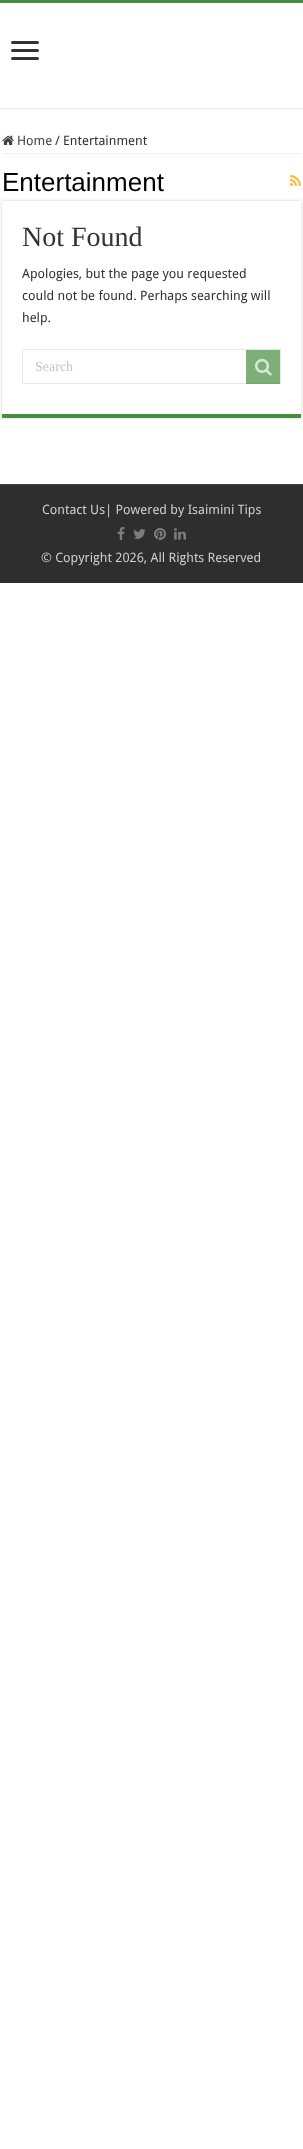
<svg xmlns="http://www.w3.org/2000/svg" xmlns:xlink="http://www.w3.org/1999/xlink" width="303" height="2149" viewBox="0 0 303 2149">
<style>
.cls-1{font:13px Droid Sans;fill:#444444}
.cls-2{font:13px Droid Sans;fill:#333333}
.cls-3{font:26px Liberation Sans;fill:#000000}
.cls-4{font:28px Liberation Serif;fill:#333333}
.cls-5{font:14px Liberation Serif;fill:#c5c5c5}
.cls-6{font:13px Droid Sans;fill:#cccccc}
</style>
<defs>
<clipPath id="clip1"><rect x="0" y="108" width="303" height="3"/></clipPath>
<clipPath id="clip2"><path d="M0 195H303V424H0ZM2 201H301V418H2Z" clip-rule="evenodd"/></clipPath>
</defs>
<rect width="100%" height="100%" fill="#ffffff"/>
<g clip-path="url(#clip1)">
<rect fill="#cacaca" filter="blur(1.5px)" x="0" y="0" width="303" height="108"/>
</g>
<rect fill="#468f3e" x="0" y="0" width="303" height="3"/>
<rect fill="#333333" x="11" y="41" width="28" height="3" rx="1.5"/>
<rect fill="#333333" x="11" y="49" width="28" height="3" rx="1.5"/>
<rect fill="#333333" x="11" y="57" width="28" height="3" rx="1.5"/>
<rect fill="#eeeeee" x="2" y="153" width="299" height="1"/>
<image xlink:href="image0.png" x="2" y="135" width="12" height="10"/>
<image xlink:href="image1.png" x="290" y="175" width="11" height="11"/>
<g clip-path="url(#clip2)">
<rect fill="#cacaca" filter="blur(1.5px)" x="2" y="201" width="299" height="217"/>
</g>
<rect fill="#468f3e" x="2" y="414" width="299" height="4"/>
<rect fill="none" stroke="#e8e8e8" x="22.5" y="349.5" width="258" height="34"/>
<rect fill="#468f3e" fill-opacity="0.7" x="246" y="350" width="34" height="34"/>
<image xlink:href="image2.png" x="255" y="358" width="17" height="18"/>
<rect fill="#2e2e2e" x="0" y="485" width="303" height="98"/>
<rect fill="#444444" x="0" y="484" width="303" height="1"/>
<image xlink:href="image3.png" x="117" y="527" width="8" height="13"/>
<image xlink:href="image4.png" x="133" y="529" width="13" height="10"/>
<image xlink:href="image5.png" x="154" y="528" width="12" height="12"/>
<image xlink:href="image6.png" x="174" y="528" width="12" height="12"/>
<text class="cls-1" x="17" y="145">Home</text>
<text class="cls-2" x="55" y="145">/</text>
<text class="cls-2" x="63" y="145">Entertainment</text>
<text class="cls-3" x="2" y="191">Entertainment</text>
<text class="cls-4" x="22" y="246">Not Found</text>
<text class="cls-2"><tspan x="22" y="278">Apologies, but the page you requested</tspan><tspan x="22" y="300">could not be found. Perhaps searching will</tspan><tspan x="22" y="322">help.</tspan></text>
<text class="cls-5" x="35" y="371">Search</text>
<text class="cls-6" x="42" y="514">Contact Us| Powered by Isaimini Tips</text>
<text class="cls-6" x="41" y="562">© Copyright 2026, All Rights Reserved</text>
</svg>
